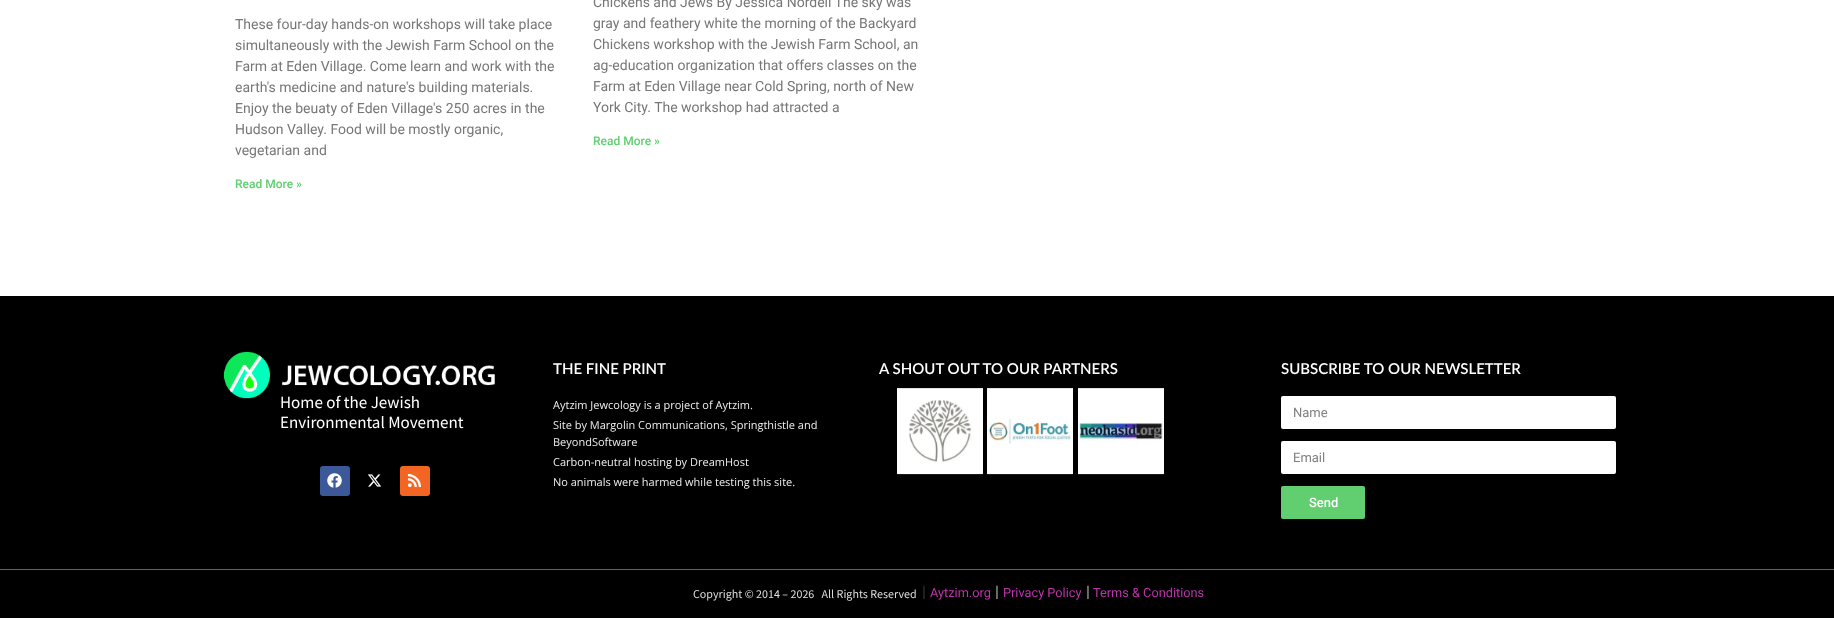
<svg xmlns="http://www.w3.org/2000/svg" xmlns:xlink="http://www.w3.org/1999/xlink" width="1834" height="618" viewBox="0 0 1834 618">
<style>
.cls-1{font:14px Roboto;fill:#777777}
.cls-2{font:500 12px Roboto;fill:#61ce70}
.cls-3{font:17px Source Sans Pro;fill:#ffffff}
.cls-4{font:600 15px Lato;fill:#ffffff}
.cls-5{font:11px Open Sans;fill:#eeeeee}
.cls-6{font:13px Roboto;fill:#808080}
.cls-7{font:500 13px Roboto;fill:#ffffff}
.cls-8{font:12px Source Sans Pro;fill:#dfdfdf}
.cls-9{font:16px Roboto;fill:#333333}
.cls-10{font:12.75px Roboto;fill:#bd34ad}
.cls-11{font:16px Roboto;fill:#aaaaaa}
</style>
<rect width="100%" height="100%" fill="#ffffff"/>
<rect fill="#000000" x="0" y="296" width="1834" height="273"/>
<image xlink:href="image0.png" x="224" y="351" width="271" height="48"/>
<rect fill="#3b5998" x="320" y="466" width="30" height="30" rx="3"/>
<image xlink:href="image1.png" x="327" y="473" width="15" height="15"/>
<image xlink:href="image2.png" x="367" y="474" width="15" height="13"/>
<rect fill="#f26522" x="400" y="466" width="30" height="30" rx="3"/>
<image xlink:href="image3.png" x="407" y="474" width="14" height="14"/>
<image xlink:href="image4.png" x="897" y="388" width="86" height="87"/>
<image xlink:href="image5.png" x="987" y="388" width="86" height="87"/>
<image xlink:href="image6.png" x="1078" y="388" width="86" height="87"/>
<rect fill="#ffffff" x="1281" y="396" width="335" height="33" rx="2"/>
<rect fill="#ffffff" x="1281" y="441" width="335" height="33" rx="2"/>
<rect fill="#61ce70" x="1281" y="486" width="84" height="33" rx="2"/>
<rect fill="#000000" x="0" y="570" width="1834" height="48"/>
<rect fill="#636363" x="0" y="569" width="1834" height="1"/>
<text class="cls-1"><tspan x="235" y="29">These four-day hands-on workshops will take place</tspan><tspan x="235" y="50">simultaneously with the Jewish Farm School on the</tspan><tspan x="235" y="71">Farm at Eden Village. Come learn and work with the</tspan><tspan x="235" y="92">earth's medicine and nature's building materials.</tspan><tspan x="235" y="113">Enjoy the beuaty of Eden Village's 250 acres in the</tspan><tspan x="235" y="134">Hudson Valley. Food will be mostly organic,</tspan><tspan x="235" y="155">vegetarian and</tspan></text>
<text class="cls-2" x="235" y="188">Read More »</text>
<text class="cls-1"><tspan x="593" y="7">Chickens and Jews By Jessica Nordell The sky was</tspan><tspan x="593" y="28">gray and feathery white the morning of the Backyard</tspan><tspan x="593" y="49">Chickens workshop with the Jewish Farm School, an</tspan><tspan x="593" y="70">ag-education organization that offers classes on the</tspan><tspan x="593" y="91">Farm at Eden Village near Cold Spring, north of New</tspan><tspan x="593" y="112">York City. The workshop had attracted a</tspan></text>
<text class="cls-2" x="593" y="145">Read More »</text>
<text class="cls-3"><tspan x="280" y="408">Home of the Jewish</tspan><tspan x="280" y="428">Environmental Movement</tspan></text>
<text class="cls-4" x="553" y="374">THE FINE PRINT</text>
<text class="cls-5"><tspan x="553" y="409">Aytzim Jewcology is a project of Aytzim.</tspan><tspan x="553" y="429">Site by Margolin Communications, Springthistle and</tspan><tspan x="553" y="446">BeyondSoftware</tspan><tspan x="553" y="466">Carbon-neutral hosting by DreamHost</tspan><tspan x="553" y="486">No animals were harmed while testing this site.</tspan></text>
<text class="cls-4" x="879" y="374">A SHOUT OUT TO OUR PARTNERS</text>
<text class="cls-4" x="1281" y="374">SUBSCRIBE TO OUR NEWSLETTER</text>
<text class="cls-6" x="1293" y="417">Name</text>
<text class="cls-6" x="1293" y="462">Email</text>
<text class="cls-7" x="1309" y="507">Send</text>
<text class="cls-8" xml:space="preserve" x="693" y="598">Copyright © 2014 – 2026   All Rights Reserved</text>
<text class="cls-9" x="922" y="597">|</text>
<text class="cls-10" x="930" y="597">Aytzim.org</text>
<text class="cls-11" x="995" y="597">|</text>
<text class="cls-10" x="1003" y="597">Privacy Policy</text>
<text class="cls-11" x="1086" y="597">|</text>
<text class="cls-10" x="1093" y="597">Terms &amp; Conditions</text>
</svg>
